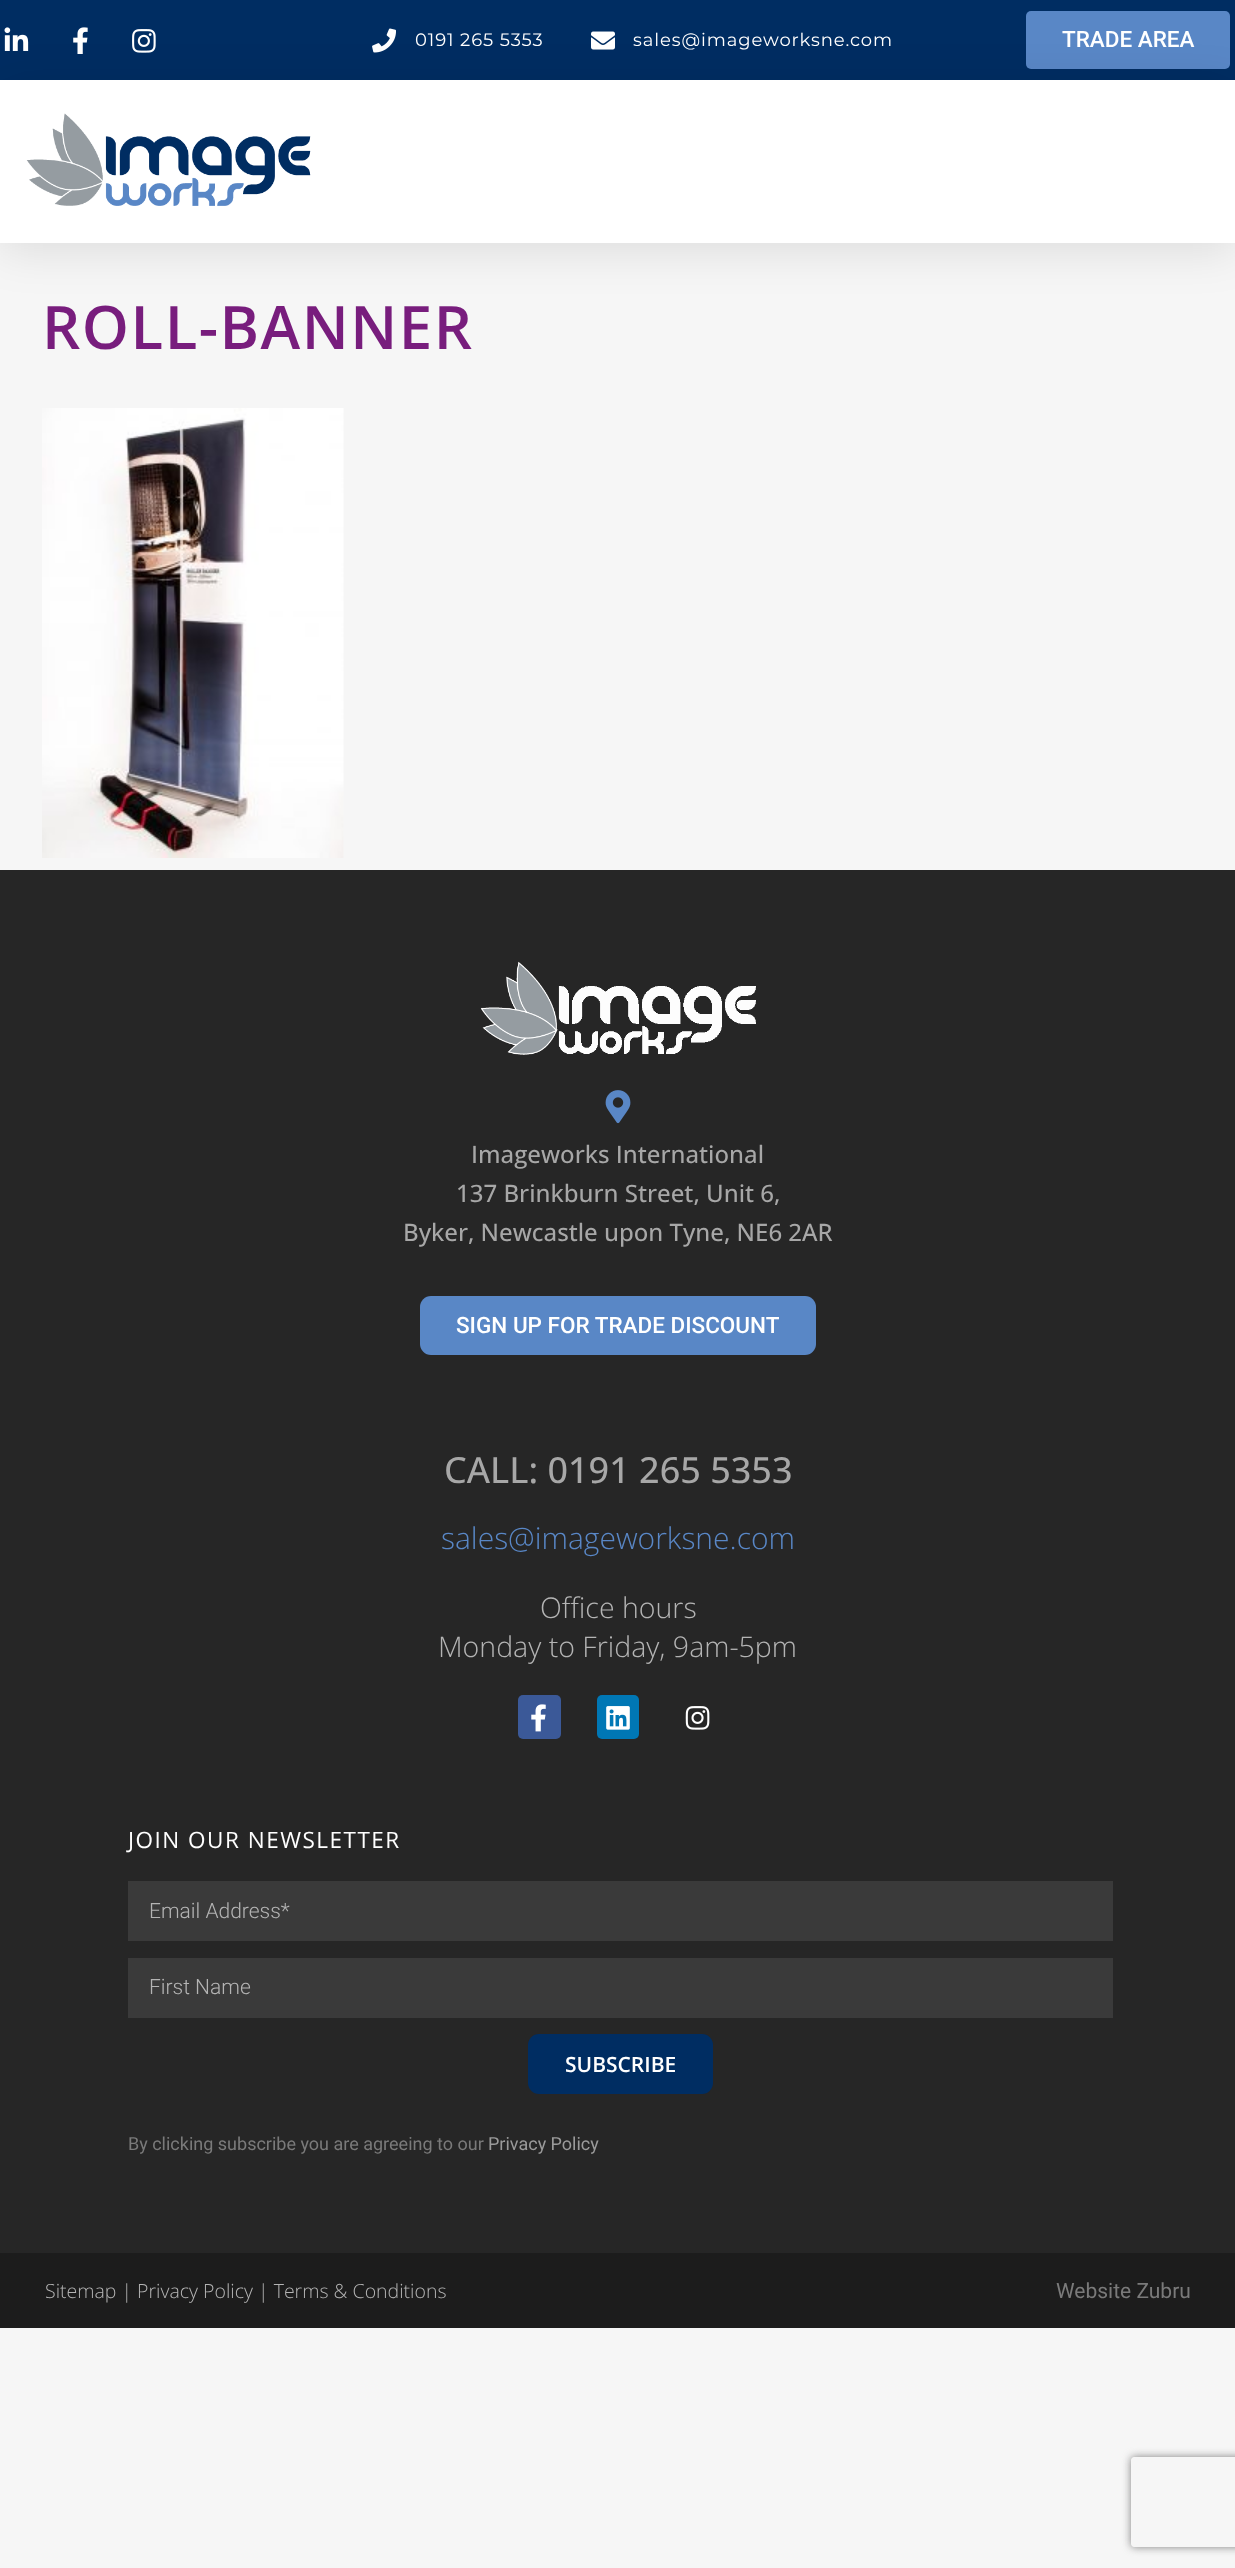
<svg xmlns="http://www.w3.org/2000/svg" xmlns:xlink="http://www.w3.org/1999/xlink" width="1235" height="2568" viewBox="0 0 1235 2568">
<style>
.cls-1{font:18px Montserrat;letter-spacing:0.9px;fill:#ffffff}
.cls-2{font:500 22.5px Roboto;fill:#ffffff}
.cls-3{font:600 60px Open Sans;letter-spacing:1.5px;fill:#781d7d}
.cls-4{font:500 24px Open Sans;fill:#a7a7a7}
.cls-5{font:500 36px Open Sans;fill:#a7a7a7}
.cls-6{font:300 30px Open Sans;fill:#5987c6}
.cls-7{font:300 28.5px Open Sans;fill:#b4b4b4}
.cls-8{font:22.5px Open Sans;letter-spacing:1.5px;fill:#ffffff}
.cls-9{font:300 21px Roboto;fill:#b4b4b4}
.cls-10{font:600 21px Open Sans;fill:#ffffff}
.cls-11{font:18px Roboto;fill:#7a7a7a}
.cls-12{font:18px Roboto;fill:#9a9a9a}
.cls-13{font:300 19.5px Open Sans;fill:#b4b4b4}
.cls-14{font:21px Roboto;fill:#7a7a7a}
</style>
<defs>
<clipPath id="clip1"><path d="M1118 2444H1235V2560H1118ZM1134 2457H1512C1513.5 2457 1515 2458.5 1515 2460V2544C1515 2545.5 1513.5 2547 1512 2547H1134C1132.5 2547 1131 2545.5 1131 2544V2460C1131 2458.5 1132.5 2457 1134 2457Z" clip-rule="evenodd"/></clipPath>
</defs>
<rect width="100%" height="100%" fill="#f6f6f6"/>
<rect fill="#002d62" x="0" y="0" width="1235" height="80"/>
<image xlink:href="image1.png" x="4" y="27" width="25" height="24"/>
<image xlink:href="image2.png" x="73" y="27" width="15" height="27"/>
<image xlink:href="image3.png" x="132" y="29" width="24" height="24"/>
<image xlink:href="image4.png" x="372" y="28" width="24" height="25"/>
<image xlink:href="image5.png" x="591" y="31" width="24" height="19"/>
<rect fill="#5987c6" x="1026" y="11" width="204" height="58" rx="5"/>
<rect fill="#000000" fill-opacity="0.1" filter="blur(22.5px)" x="0" y="87" width="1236" height="164"/>
<rect fill="#ffffff" x="0" y="80" width="1235" height="163"/>
<image xlink:href="image0.png" x="26" y="113" width="285" height="93"/>
<image xlink:href="image6.png" x="42" y="408" width="302" height="450"/>
<rect fill="#262626" x="0" y="870" width="1235" height="1383"/>
<image xlink:href="image7.png" x="480" y="961" width="276" height="94"/>
<image xlink:href="image8.png" x="605" y="1090" width="26" height="34"/>
<rect fill="#5987c6" x="420" y="1296" width="396" height="59" rx="11"/>
<rect fill="#3b5998" x="518" y="1695" width="43" height="44" rx="5"/>
<image xlink:href="image9.png" x="531" y="1704" width="15" height="28"/>
<rect fill="#0077b5" x="597" y="1695" width="42" height="44" rx="5"/>
<image xlink:href="image10.png" x="606" y="1706" width="24" height="24"/>
<image xlink:href="image11.png" x="685" y="1706" width="25" height="24"/>
<rect fill="#3a3a3a" x="128" y="1881" width="985" height="60"/>
<rect fill="#3a3a3a" x="128" y="1958" width="985" height="60"/>
<rect fill="#002d62" x="528" y="2034" width="185" height="60" rx="11"/>
<rect fill="#1c1c1c" x="0" y="2253" width="1235" height="75"/>
<g clip-path="url(#clip1)">
<rect fill="#808080" filter="blur(4px)" x="1131" y="2457" width="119" height="90" rx="3"/>
</g>
<text class="cls-1" x="415" y="46">0191 265 5353</text>
<text class="cls-1" x="633" y="46">sales@imageworksne.com</text>
<text class="cls-2" x="1062" y="47">TRADE AREA</text>
<text class="cls-3" x="42" y="349">ROLL-BANNER</text>
<text class="cls-4" x="471" y="1163">Imageworks International</text>
<text class="cls-4" x="456" y="1202">137 Brinkburn Street, Unit 6,</text>
<text class="cls-4" x="403" y="1241">Byker, Newcastle upon Tyne, NE6 2AR</text>
<text class="cls-2" x="456" y="1333">SIGN UP FOR TRADE DISCOUNT</text>
<text class="cls-5" x="444" y="1483">CALL: 0191 265 5353</text>
<text class="cls-6" x="441" y="1549">sales@imageworksne.com</text>
<text class="cls-7" x="540" y="1618">Office hours</text>
<text class="cls-7" x="438" y="1657">Monday to Friday, 9am-5pm</text>
<text class="cls-8" x="128" y="1848">JOIN OUR NEWSLETTER</text>
<text class="cls-9" x="149" y="1918">Email Address*</text>
<text class="cls-9" x="149" y="1994">First Name</text>
<text class="cls-10" x="565" y="2072">SUBSCRIBE</text>
<text class="cls-11" x="128" y="2150">By clicking subscribe you are agreeing to our</text>
<text class="cls-12" x="488" y="2150">Privacy Policy</text>
<text class="cls-13" x="45" y="2298">Sitemap | Privacy Policy | Terms &amp; Conditions</text>
<text class="cls-14" x="1056" y="2298">Website Zubru</text>
</svg>
